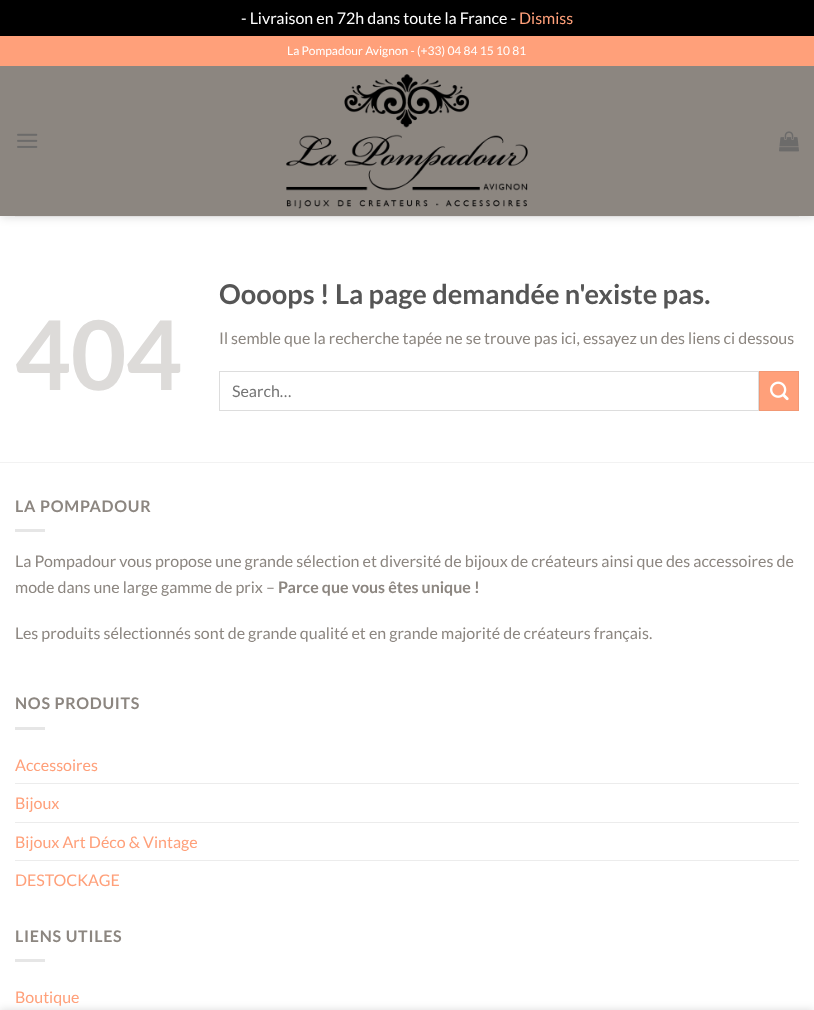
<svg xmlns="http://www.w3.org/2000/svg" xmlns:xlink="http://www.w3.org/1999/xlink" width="814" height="1010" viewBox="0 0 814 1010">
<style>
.cls-1{font:16px Lato;fill:#ffffff}
.cls-2{font:16px Lato;fill:#ffa07a}
.cls-3{font:12px Lato;fill:#ffffff}
.cls-4{font:bold 96px Lato;fill:#dddbd9}
.cls-5{font:bold 27.25px Lato;fill:#555555}
.cls-6{font:16px Lato;fill:#8c8680}
.cls-7{font:16px Lato;fill:#757575}
.cls-8{font:bold 16px Lato;letter-spacing:0.75px;fill:#8c8680}
.cls-9{font:bold 16px Lato;fill:#8c8680}
</style>
<rect width="100%" height="100%" fill="#000000"/>
<rect fill="#ffffff" x="0" y="216" width="814" height="794"/>
<rect fill="#000000" fill-opacity="0.15" filter="blur(5px)" x="1" y="37" width="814" height="180"/>
<rect fill="#ffa07a" x="0" y="36" width="814" height="30"/>
<rect fill="#8c8680" x="0" y="66" width="814" height="150"/>
<image xlink:href="image0.png" x="17" y="133" width="21" height="15"/>
<image xlink:href="image1.png" x="286" y="74" width="242" height="135"/>
<image xlink:href="image2.png" x="779" y="131" width="20" height="21"/>
<rect fill="#e1e0e0" x="15" y="216" width="784" height="1"/>
<rect fill="none" stroke="#dddddd" x="219.5" y="371.5" width="539" height="39"/>
<rect fill="#ffa07a" stroke="#f29874" x="759.5" y="371.5" width="39" height="39"/>
<image xlink:href="image3.png" x="770" y="381" width="19" height="20"/>
<rect fill="#f2f2f2" x="0" y="462" width="814" height="1"/>
<rect fill="#e6e6e6" x="15" y="529" width="30" height="3"/>
<rect fill="#e6e6e6" x="15" y="727" width="30" height="3"/>
<rect fill="#ececec" x="15" y="783" width="784" height="1"/>
<rect fill="#ececec" x="15" y="822" width="784" height="1"/>
<rect fill="#ececec" x="15" y="860" width="784" height="1"/>
<rect fill="#e6e6e6" x="15" y="959" width="30" height="3"/>
<rect fill="#000000" fill-opacity="0.14" filter="blur(4.5px)" x="0" y="1010" width="814" height="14"/>
<text class="cls-1" x="241" y="24">- Livraison en 72h dans toute la France -</text>
<text class="cls-2" x="519" y="24">Dismiss</text>
<text class="cls-3" x="287" y="55">La Pompadour Avignon - (+33) 04 84 15 10 81</text>
<text class="cls-4" x="15" y="390">404</text>
<text class="cls-5" x="219" y="304">Oooops ! La page demandée n'existe pas.</text>
<text class="cls-6" x="219" y="344">Il semble que la recherche tapée ne se trouve pas ici, essayez un des liens ci dessous</text>
<text class="cls-7" x="232" y="397">Search…</text>
<text class="cls-8" x="15" y="512">LA POMPADOUR</text>
<text class="cls-6"><tspan x="15" y="567">La Pompadour vous propose une grande sélection et diversité de bijoux de créateurs ainsi que des accessoires de</tspan><tspan x="15" y="593">mode dans une large gamme de prix –</tspan></text>
<text class="cls-9" x="278" y="593">Parce que vous êtes unique !</text>
<text class="cls-6" x="15" y="639">Les produits sélectionnés sont de grande qualité et en grande majorité de créateurs français.</text>
<text class="cls-8" x="15" y="709">NOS PRODUITS</text>
<text class="cls-2" x="15" y="771">Accessoires</text>
<text class="cls-2" x="15" y="809">Bijoux</text>
<text class="cls-2" x="15" y="848">Bijoux Art Déco &amp; Vintage</text>
<text class="cls-2" x="15" y="886">DESTOCKAGE</text>
<text class="cls-8" x="15" y="942">LIENS UTILES</text>
<text class="cls-2" x="15" y="1003">Boutique</text>
</svg>
